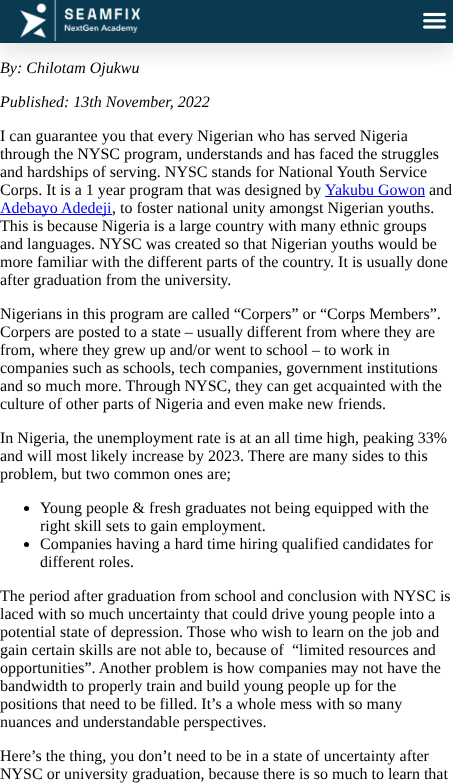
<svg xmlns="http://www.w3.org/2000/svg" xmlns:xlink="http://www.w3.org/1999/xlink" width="453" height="784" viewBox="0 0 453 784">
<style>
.cls-1{font:italic 16px Liberation Serif;fill:#000000}
.cls-2{font:16px Liberation Serif;fill:#000000}
.cls-3{font:16px Liberation Serif;fill:#0000ee}
</style>
<rect width="100%" height="100%" fill="#ffffff"/>
<rect fill="#000000" fill-opacity="0.1" filter="blur(10px)" x="0" y="10" width="453" height="43"/>
<rect fill="#093a51" x="0" y="0" width="453" height="43"/>
<image xlink:href="image0.png" x="20" y="0" width="120" height="41"/>
<image xlink:href="image1.png" x="423" y="12" width="23" height="17"/>
<rect fill="#0000ee" x="325" y="196" width="100" height="1"/>
<rect fill="#0000ee" x="0" y="214" width="112" height="1"/>
<circle fill="#000000" cx="26.5" cy="508.5" r="2.5"/>
<circle fill="#000000" cx="26.5" cy="544.5" r="2.5"/>
<text class="cls-1" x="0" y="73">By: Chilotam Ojukwu</text>
<text class="cls-1" x="0" y="107">Published: 13th November, 2022</text>
<text class="cls-2"><tspan x="0" y="141">I can guarantee you that every Nigerian who has served Nigeria</tspan><tspan x="0" y="159">through the NYSC program, understands and has faced the struggles</tspan><tspan x="0" y="177">and hardships of serving. NYSC stands for National Youth Service</tspan><tspan x="0" y="195">Corps. It is a 1 year program that was designed by</tspan></text>
<text class="cls-3" x="325" y="195">Yakubu Gowon</text>
<text class="cls-2" x="429" y="195">and</text>
<text class="cls-3" x="0" y="213">Adebayo Adedeji</text>
<text class="cls-2" x="112" y="213">, to foster national unity amongst Nigerian youths.</text>
<text class="cls-2"><tspan x="0" y="231">This is because Nigeria is a large country with many ethnic groups</tspan><tspan x="0" y="249">and languages. NYSC was created so that Nigerian youths would be</tspan><tspan x="0" y="267">more familiar with the different parts of the country. It is usually done</tspan><tspan x="0" y="285">after graduation from the university.</tspan></text>
<text class="cls-2"><tspan x="0" y="319">Nigerians in this program are called “Corpers” or “Corps Members”.</tspan><tspan x="0" y="337">Corpers are posted to a state – usually different from where they are</tspan><tspan x="0" y="355">from, where they grew up and/or went to school – to work in</tspan><tspan x="0" y="373">companies such as schools, tech companies, government institutions</tspan><tspan x="0" y="391">and so much more. Through NYSC, they can get acquainted with the</tspan><tspan x="0" y="409">culture of other parts of Nigeria and even make new friends.</tspan></text>
<text class="cls-2"><tspan x="0" y="443">In Nigeria, the unemployment rate is at an all time high, peaking 33%</tspan><tspan x="0" y="461">and will most likely increase by 2023. There are many sides to this</tspan><tspan x="0" y="479">problem, but two common ones are;</tspan></text>
<text class="cls-2"><tspan x="40" y="513">Young people &amp; fresh graduates not being equipped with the</tspan><tspan x="40" y="531">right skill sets to gain employment.</tspan><tspan x="40" y="549">Companies having a hard time hiring qualified candidates for</tspan><tspan x="40" y="567">different roles.</tspan></text>
<text class="cls-2" xml:space="preserve"><tspan x="0" y="601">The period after graduation from school and conclusion with NYSC is</tspan><tspan x="0" y="619">laced with so much uncertainty that could drive young people into a</tspan><tspan x="0" y="637">potential state of depression. Those who wish to learn on the job and</tspan><tspan x="0" y="655">gain certain skills are not able to, because of  “limited resources and</tspan><tspan x="0" y="673">opportunities”. Another problem is how companies may not have the</tspan><tspan x="0" y="691">bandwidth to properly train and build young people up for the</tspan><tspan x="0" y="709">positions that need to be filled. It’s a whole mess with so many</tspan><tspan x="0" y="727">nuances and understandable perspectives.</tspan></text>
<text class="cls-2"><tspan x="0" y="761">Here’s the thing, you don’t need to be in a state of uncertainty after</tspan><tspan x="0" y="779">NYSC or university graduation, because there is so much to learn that</tspan></text>
</svg>
